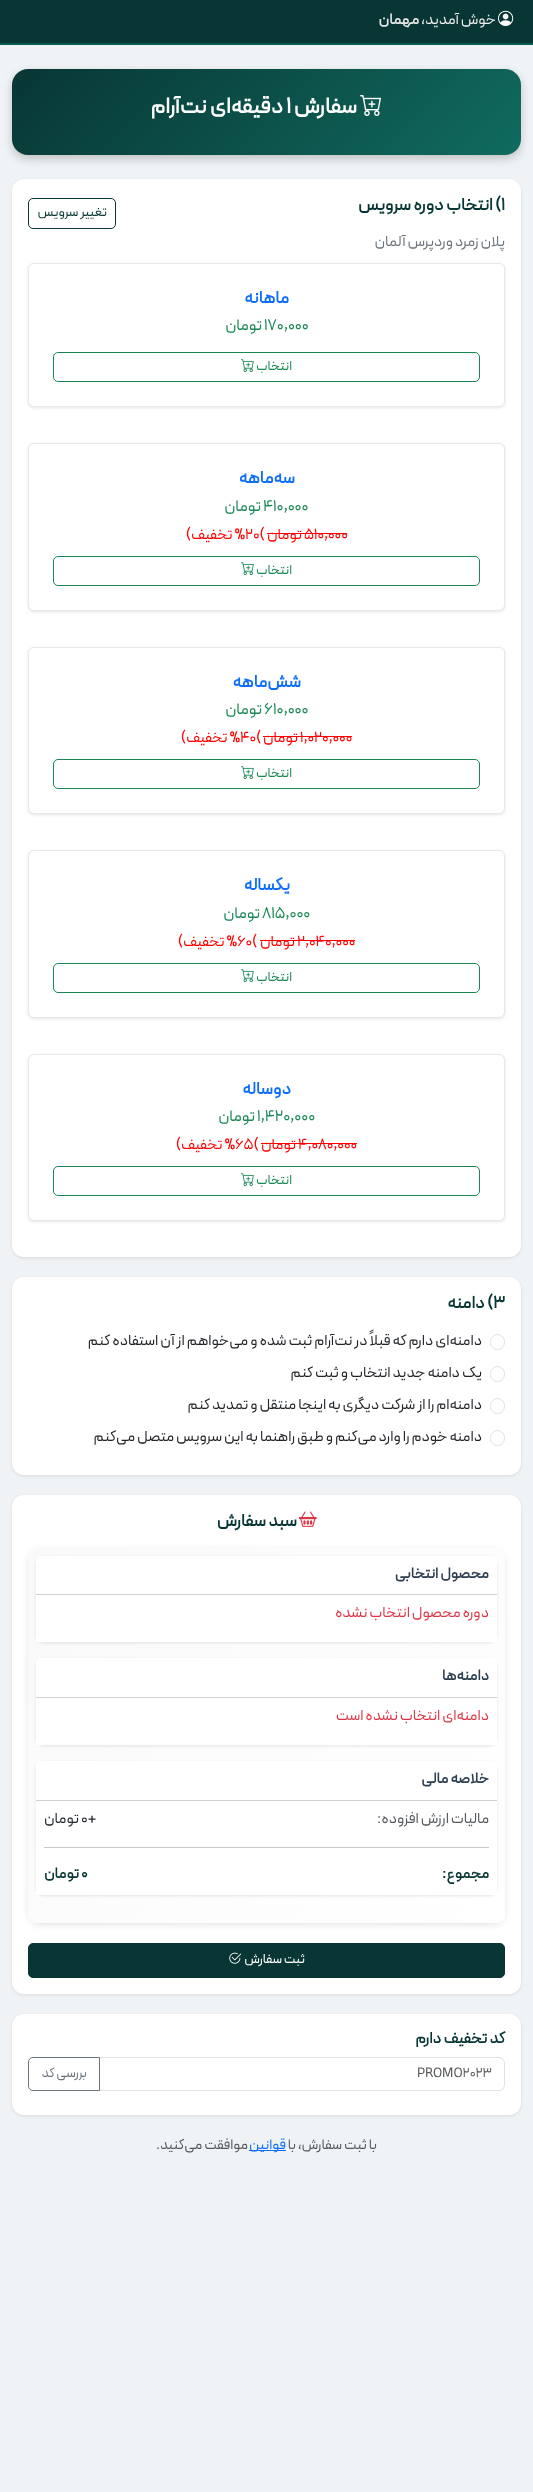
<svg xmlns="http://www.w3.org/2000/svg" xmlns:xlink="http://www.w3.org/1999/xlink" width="533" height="2492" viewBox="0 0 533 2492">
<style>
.cls-1{font:15.2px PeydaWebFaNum;direction:rtl;fill:#f0f0f0}
.cls-2{font:bold 15.2px PeydaWebFaNum;direction:rtl;fill:#e6e6e6}
.cls-3{font:bold 22.5px PeydaWebFaNum;direction:rtl;fill:#ffffff}
.cls-4{font:bold 22.5px PeydaWebFaNum;fill:#ffffff}
.cls-5{font:bold 17.5px PeydaWebFaNum;fill:#083634}
.cls-6{font:bold 17.5px PeydaWebFaNum;direction:rtl;fill:#083634}
.cls-7{font:13.5px PeydaWebFaNum;direction:rtl;fill:#083634}
.cls-8{font:15.2px PeydaWebFaNum;direction:rtl;fill:#6c757d}
.cls-9{font:bold 17.5px PeydaWebFaNum;direction:rtl;fill:#0d6efd}
.cls-10{font:16px PeydaWebFaNum;fill:#198754}
.cls-11{font:16px PeydaWebFaNum;direction:rtl;fill:#198754}
.cls-12{font:13.5px PeydaWebFaNum;direction:rtl;fill:#198754}
.cls-13{font:15.2px PeydaWebFaNum;fill:#ff0000}
.cls-14{font:15.2px PeydaWebFaNum;direction:rtl;fill:#ff0000}
.cls-15{font:15.2px PeydaWebFaNum;direction:rtl;fill:#212529}
.cls-16{font:bold 15.2px PeydaWebFaNum;direction:rtl;fill:#2c3e50}
.cls-17{font:15.2px PeydaWebFaNum;direction:rtl;fill:#dc3545}
.cls-18{font:15.2px PeydaWebFaNum;direction:rtl;fill:#55595c}
.cls-19{font:15.2px PeydaWebFaNum;fill:#212529}
.cls-20{font:bold 15.2px PeydaWebFaNum;direction:rtl;fill:#083634}
.cls-21{font:bold 15.2px PeydaWebFaNum;fill:#083634}
.cls-22{font:13.5px PeydaWebFaNum;direction:rtl;fill:#ffffff}
.cls-23{font:bold 16px PeydaWebFaNum;direction:rtl;fill:#083634}
.cls-24{font:13.5px PeydaWebFaNum;fill:#55595c}
.cls-25{font:13.5px PeydaWebFaNum;direction:rtl;fill:#6c757d}
.cls-26{font:14.5px PeydaWebFaNum;direction:rtl;fill:#55595c}
.cls-27{font:14.5px PeydaWebFaNum;direction:rtl;fill:#0d6efd}
</style>
<defs>
<linearGradient id="g1" gradientUnits="userSpaceOnUse" x1="118" y1="-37" x2="415" y2="261"><stop offset="0" stop-color="#083634"/><stop offset="1" stop-color="#106b5f"/></linearGradient>
<linearGradient id="g2" gradientUnits="userSpaceOnUse" x1="54" y1="1523" x2="480" y2="1949"><stop offset="0" stop-color="#f9f9f9"/><stop offset="1" stop-color="#ffffff"/></linearGradient>
</defs>
<rect width="100%" height="100%" fill="#f0f3f5"/>
<rect fill="#083634" x="0" y="0" width="533" height="43"/>
<rect fill="#075c50" x="0" y="43" width="533" height="2"/>
<image xlink:href="image0.png" x="498" y="10" width="16" height="16"/>
<rect fill="#000000" fill-opacity="0.2" filter="blur(5px)" x="12" y="73" width="509" height="86" rx="16"/>
<rect fill="url(#g1)" x="12" y="69" width="509" height="86" rx="16"/>
<image xlink:href="image1.png" x="360" y="95" width="21" height="21"/>
<rect fill="#000000" fill-opacity="0.1" filter="blur(1.5px)" x="12" y="180" width="509" height="1078" rx="12"/>
<rect fill="#ffffff" x="12" y="179" width="509" height="1078" rx="12"/>
<rect fill="none" stroke="#083634" x="28.5" y="198.5" width="87" height="30" rx="4.5"/>
<rect fill="#000000" fill-opacity="0.1" filter="blur(1.5px)" x="28" y="264" width="477" height="144" rx="6"/>
<rect fill="#ffffff" stroke="#e8e8e8" x="28.5" y="263.5" width="476" height="143" rx="5.5"/>
<rect fill="none" stroke="#198754" x="53.5" y="352.5" width="426" height="29" rx="4.5"/>
<image xlink:href="image2.png" x="241" y="359" width="13" height="13"/>
<rect fill="#000000" fill-opacity="0.1" filter="blur(1.5px)" x="28" y="444" width="477" height="168" rx="6"/>
<rect fill="#ffffff" stroke="#e8e8e8" x="28.5" y="443.5" width="476" height="167" rx="5.5"/>
<rect fill="#ff0000" x="267" y="533" width="37" height="1"/>
<rect fill="#ff0000" x="304" y="533" width="43" height="1"/>
<rect fill="none" stroke="#198754" x="53.5" y="556.5" width="426" height="29" rx="4.5"/>
<image xlink:href="image2.png" x="241" y="562" width="13" height="13"/>
<rect fill="#000000" fill-opacity="0.1" filter="blur(1.5px)" x="28" y="648" width="477" height="167" rx="6"/>
<rect fill="#ffffff" stroke="#e8e8e8" x="28.5" y="647.5" width="476" height="166" rx="5.5"/>
<rect fill="#ff0000" x="263" y="736" width="37" height="1"/>
<rect fill="#ff0000" x="300" y="736" width="52" height="1"/>
<rect fill="none" stroke="#198754" x="53.5" y="759.5" width="426" height="29" rx="4.5"/>
<image xlink:href="image2.png" x="241" y="766" width="13" height="13"/>
<rect fill="#000000" fill-opacity="0.1" filter="blur(1.5px)" x="28" y="851" width="477" height="168" rx="6"/>
<rect fill="#ffffff" stroke="#e8e8e8" x="28.5" y="850.5" width="476" height="167" rx="5.5"/>
<rect fill="#ff0000" x="260" y="940" width="37" height="1"/>
<rect fill="#ff0000" x="297" y="940" width="58" height="1"/>
<rect fill="none" stroke="#198754" x="53.5" y="963.5" width="426" height="29" rx="4.5"/>
<image xlink:href="image2.png" x="241" y="969" width="13" height="13"/>
<rect fill="#000000" fill-opacity="0.1" filter="blur(1.5px)" x="28" y="1055" width="477" height="167" rx="6"/>
<rect fill="#ffffff" stroke="#e8e8e8" x="28.5" y="1054.5" width="476" height="166" rx="5.5"/>
<rect fill="#ff0000" x="261" y="1143" width="37" height="1"/>
<rect fill="#ff0000" x="298" y="1143" width="59" height="1"/>
<rect fill="none" stroke="#198754" x="53.5" y="1166.5" width="426" height="29" rx="4.5"/>
<image xlink:href="image2.png" x="241" y="1173" width="13" height="13"/>
<rect fill="#000000" fill-opacity="0.1" filter="blur(1.5px)" x="12" y="1278" width="509" height="198" rx="12"/>
<rect fill="#ffffff" x="12" y="1277" width="509" height="198" rx="12"/>
<rect fill="none" stroke="#dee2e6" x="490.5" y="1334.5" width="14" height="15" rx="7"/>
<rect fill="none" stroke="#dee2e6" x="490.5" y="1366.5" width="14" height="15" rx="7"/>
<rect fill="none" stroke="#dee2e6" x="490.5" y="1398.5" width="14" height="15" rx="7"/>
<rect fill="none" stroke="#dee2e6" x="490.5" y="1430.5" width="14" height="15" rx="7"/>
<rect fill="#000000" fill-opacity="0.1" filter="blur(1.5px)" x="12" y="1496" width="509" height="499" rx="12"/>
<rect fill="#ffffff" x="12" y="1495" width="509" height="499" rx="12"/>
<image xlink:href="image3.png" x="299" y="1511" width="18" height="16"/>
<rect fill="#000000" fill-opacity="0.1" filter="blur(3px)" x="28" y="1550" width="477" height="375" rx="12"/>
<rect fill="url(#g2)" x="28" y="1548" width="477" height="375" rx="8"/>
<rect fill="#000000" fill-opacity="0.1" filter="blur(1.5px)" x="36" y="1557" width="461" height="86" rx="8"/>
<path fill="#ffffff" d="M41 1556H492C495 1556 497 1558 497 1561V1595H36V1561C36 1558 38 1556 41 1556Z"/>
<rect fill="#d2d2d2" x="36" y="1594" width="461" height="1"/>
<rect fill="#ffffff" x="36" y="1595" width="461" height="47"/>
<rect fill="#000000" fill-opacity="0.1" filter="blur(1.5px)" x="36" y="1659" width="461" height="87" rx="8"/>
<path fill="#ffffff" d="M41 1658H492C495 1658 497 1660 497 1663V1698H36V1663C36 1660 38 1658 41 1658Z"/>
<rect fill="#d2d2d2" x="36" y="1697" width="461" height="1"/>
<rect fill="#ffffff" x="36" y="1698" width="461" height="47"/>
<rect fill="#000000" fill-opacity="0.1" filter="blur(1.5px)" x="36" y="1762" width="461" height="134" rx="8"/>
<path fill="#ffffff" d="M41 1761H492C495 1761 497 1763 497 1766V1801H36V1766C36 1763 38 1761 41 1761Z"/>
<rect fill="#d2d2d2" x="36" y="1800" width="461" height="1"/>
<rect fill="#ffffff" x="36" y="1801" width="461" height="94"/>
<rect fill="#c8c9ca" x="44" y="1847" width="445" height="1"/>
<rect fill="#083634" stroke="#083634" x="28.5" y="1943.5" width="476" height="34" rx="4.5"/>
<image xlink:href="image4.png" x="229" y="1952" width="13" height="12"/>
<rect fill="#000000" fill-opacity="0.1" filter="blur(1.5px)" x="12" y="2015" width="509" height="101" rx="12"/>
<rect fill="#ffffff" x="12" y="2014" width="509" height="101" rx="12"/>
<path fill="none" stroke="#dee2e6" d="M99.5 2057.5H499C502 2057.5 504.5 2060 504.5 2063V2085C504.5 2088 502 2090.5 499 2090.5H99.5Z"/>
<path fill="none" stroke="#6c757d" d="M33 2057.5H99.5V2090.5H33C30.5 2090.5 28.5 2088.5 28.5 2086V2062C28.5 2059.5 30.5 2057.5 33 2057.5Z"/>
<rect fill="#0d6efd" x="249" y="2150" width="37" height="1"/>
<text class="cls-1" x="496" y="24">خوش آمدید،</text>
<text class="cls-2" x="419" y="24">مهمان</text>
<text class="cls-3" x="357" y="113">سفارش</text>
<text class="cls-4" x="286" y="113">۱</text>
<text class="cls-3" x="283" y="113">دقیقه‌ای نت‌آرام</text>
<text class="cls-5" x="501" y="210">۱</text>
<text class="cls-6" x="501" y="210">) انتخاب دوره سرویس</text>
<text class="cls-7" x="107" y="216">تغییر سرویس</text>
<text class="cls-8" x="505" y="246">پلان زمرد وردپرس آلمان</text>
<text class="cls-9" x="289" y="303">ماهانه</text>
<text class="cls-10" x="264" y="330">170,000</text>
<text class="cls-11" x="262" y="330">تومان</text>
<text class="cls-12" x="292" y="370">انتخاب</text>
<text class="cls-9" x="295" y="483">سه‌ماهه</text>
<text class="cls-10" x="263" y="511">410,000</text>
<text class="cls-11" x="261" y="511">تومان</text>
<text class="cls-13" x="304" y="539">510,000</text>
<text class="cls-14" x="302" y="539">تومان</text>
<text class="cls-13" x="245" y="539">20(</text>
<text class="cls-14" x="245" y="539">% تخفیف)</text>
<text class="cls-12" x="292" y="574">انتخاب</text>
<text class="cls-9" x="301" y="687">شش‌ماهه</text>
<text class="cls-10" x="264" y="714">610,000</text>
<text class="cls-11" x="262" y="714">تومان</text>
<text class="cls-13" x="300" y="742">1,020,000</text>
<text class="cls-14" x="298" y="742">تومان</text>
<text class="cls-13" x="240" y="742">40(</text>
<text class="cls-14" x="240" y="742">% تخفیف)</text>
<text class="cls-12" x="292" y="777">انتخاب</text>
<text class="cls-9" x="290" y="890">یکساله</text>
<text class="cls-10" x="262" y="918">815,000</text>
<text class="cls-11" x="260" y="918">تومان</text>
<text class="cls-13" x="297" y="946">2,040,000</text>
<text class="cls-14" x="295" y="946">تومان</text>
<text class="cls-13" x="237" y="946">60(</text>
<text class="cls-14" x="237" y="946">% تخفیف)</text>
<text class="cls-12" x="292" y="981">انتخاب</text>
<text class="cls-9" x="291" y="1094">دوساله</text>
<text class="cls-10" x="257" y="1121">1,420,000</text>
<text class="cls-11" x="255" y="1121">تومان</text>
<text class="cls-13" x="298" y="1149">4,080,000</text>
<text class="cls-14" x="296" y="1149">تومان</text>
<text class="cls-13" x="235" y="1149">65(</text>
<text class="cls-14" x="235" y="1149">% تخفیف)</text>
<text class="cls-12" x="292" y="1184">انتخاب</text>
<text class="cls-5" x="493" y="1308">۳</text>
<text class="cls-6" x="493" y="1308">) دامنه</text>
<text class="cls-15" x="482" y="1345">دامنه‌ای دارم که قبلاً در نت‌آرام ثبت شده و می‌خواهم از آن استفاده کنم</text>
<text class="cls-15" x="482" y="1377">یک دامنه جدید انتخاب و ثبت کنم</text>
<text class="cls-15" x="482" y="1409">دامنه‌ام را از شرکت دیگری به اینجا منتقل و تمدید</text>
<text class="cls-15" x="210" y="1409">کنم</text>
<text class="cls-15" x="482" y="1441">دامنه خودم را وارد می‌کنم و طبق راهنما به این سرویس متصل می‌کنم</text>
<text class="cls-6" x="297" y="1526">سبد سفارش</text>
<text class="cls-16" x="489" y="1578">محصول انتخابی</text>
<text class="cls-17" x="489" y="1617">دوره محصول انتخاب نشده</text>
<text class="cls-16" x="489" y="1680">دامنه‌ها</text>
<text class="cls-17" x="489" y="1720">دامنه‌ای انتخاب نشده است</text>
<text class="cls-16" x="489" y="1783">خلاصه مالی</text>
<text class="cls-18" x="489" y="1823">مالیات ارزش افزوده:</text>
<text class="cls-19" x="81" y="1823">0+</text>
<text class="cls-15" x="79" y="1823">تومان</text>
<text class="cls-20" x="489" y="1878">مجموع:</text>
<text class="cls-21" x="81" y="1878">0</text>
<text class="cls-20" x="79" y="1878">تومان</text>
<text class="cls-22" x="305" y="1963">ثبت سفارش</text>
<text class="cls-23" x="505" y="2043">کد تخفیف دارم</text>
<text class="cls-24" x="417" y="2077">PROMO2023</text>
<text class="cls-25" x="87" y="2077">بررسی کد</text>
<text class="cls-26" x="377" y="2149">با ثبت سفارش، با</text>
<text class="cls-27" x="286" y="2149">قوانین</text>
<text class="cls-26" x="248" y="2149">موافقت می‌کنید.</text>
</svg>
